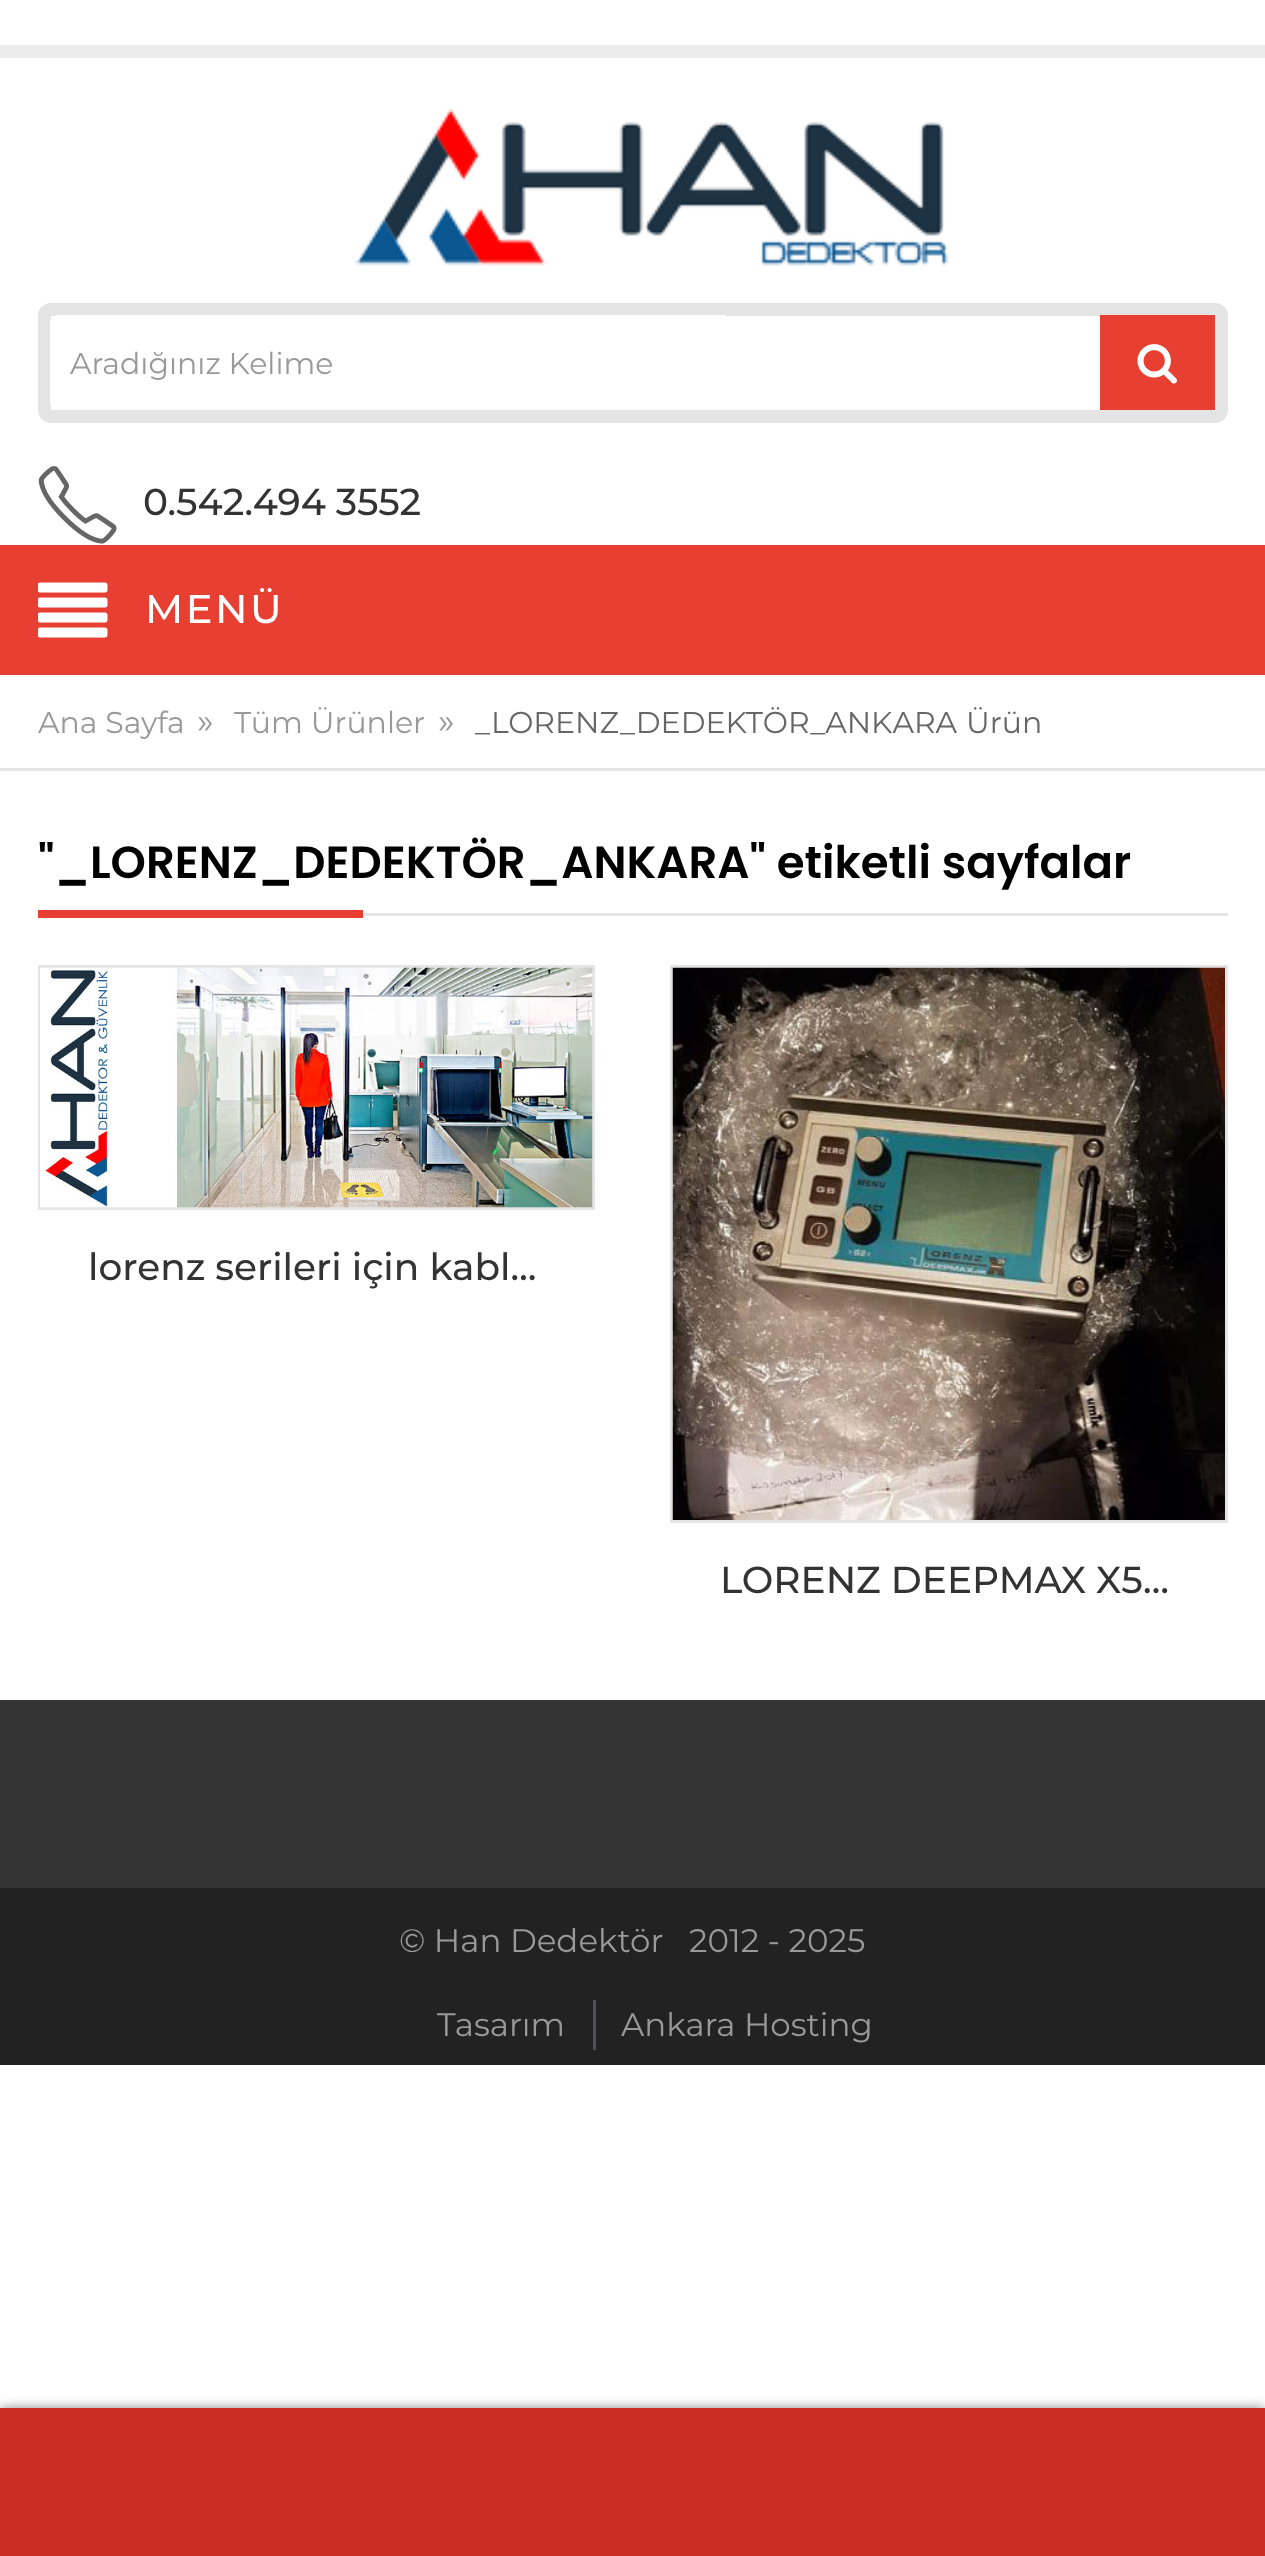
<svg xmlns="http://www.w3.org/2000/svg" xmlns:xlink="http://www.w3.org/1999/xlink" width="1265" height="2556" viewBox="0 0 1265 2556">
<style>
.cls-1{font:30px Montserrat;fill:#999999}
.cls-2{font:500 37.5px Montserrat;fill:#333333}
.cls-3{font:500 40px Montserrat;letter-spacing:2.5px;fill:#ffffff}
.cls-4{font:35px Montserrat;fill:#999999}
.cls-5{font:30px Montserrat;fill:#666666}
.cls-6{font:600 45px Poppins;fill:#000000}
.cls-7{font:32.5px Montserrat;fill:#999999}
</style>
<rect width="100%" height="100%" fill="#ffffff"/>
<rect fill="#ececec" x="0" y="45" width="1265" height="13"/>
<image xlink:href="image0.png" x="354" y="107" width="595" height="159"/>
<rect fill="none" stroke="#e4e4e4" stroke-width="13" x="44.5" y="309.5" width="1177" height="107" rx="6.5"/>
<path fill="#ffffff" d="M58 315H725V410H58C53.5 410 50 406.5 50 402V323C50 318.5 53.5 315 58 315Z"/>
<rect fill="#e83f33" x="1100" y="315" width="115" height="95"/>
<image xlink:href="image1.png" x="1137" y="344" width="40" height="40"/>
<image xlink:href="image2.png" x="38" y="466" width="79" height="78"/>
<rect fill="#e83f33" x="0" y="545" width="1265" height="130"/>
<image xlink:href="image3.png" x="38" y="582" width="70" height="56"/>
<rect fill="#e5e5e5" x="0" y="768" width="1265" height="3"/>
<rect fill="#e5e5e5" x="363" y="913" width="865" height="3"/>
<rect fill="#e83f33" x="38" y="910" width="325" height="8"/>
<rect fill="none" stroke="#e5e5e5" stroke-width="3" x="39.5" y="966.5" width="554" height="242"/>
<image xlink:href="image4.png" x="40" y="967" width="553" height="241"/>
<rect fill="none" stroke="#e5e5e5" stroke-width="3" x="671.5" y="966.5" width="555" height="555"/>
<image xlink:href="image5.png" x="672" y="967" width="553" height="553"/>
<rect fill="#333333" x="0" y="1700" width="1265" height="188"/>
<rect fill="#222222" x="0" y="1888" width="1265" height="177"/>
<rect fill="#4f515c" x="593" y="2000" width="3" height="50"/>
<rect fill="#888888" filter="blur(6px)" x="0" y="2408" width="1265" height="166"/>
<rect fill="#cb2d22" x="0" y="2408" width="1265" height="148"/>
<text class="cls-1" x="70" y="374">Aradığınız Kelime</text>
<text class="cls-2" x="143" y="515">0.542.494 3552</text>
<text class="cls-3" x="145" y="623">MENÜ</text>
<text class="cls-1" x="38" y="733">Ana Sayfa</text>
<text class="cls-4" x="197" y="733">»</text>
<text class="cls-1" x="234" y="733">Tüm Ürünler</text>
<text class="cls-4" x="438" y="733">»</text>
<text class="cls-5" x="475" y="733" word-spacing="1">_LORENZ_DEDEKTÖR_ANKARA Ürün</text>
<text class="cls-6" x="38" y="878">"_LORENZ_DEDEKTÖR_ANKARA" etiketli sayfalar</text>
<text class="cls-2" x="88" y="1280">lorenz serileri için kabl…</text>
<text class="cls-2" x="720" y="1593">LORENZ DEEPMAX X5…</text>
<text class="cls-7" xml:space="preserve" x="399" y="1952">© Han Dedektör   2012 - 2025</text>
<text class="cls-7" x="437" y="2036">Tasarım</text>
<text class="cls-7" x="621" y="2036">Ankara Hosting</text>
</svg>
